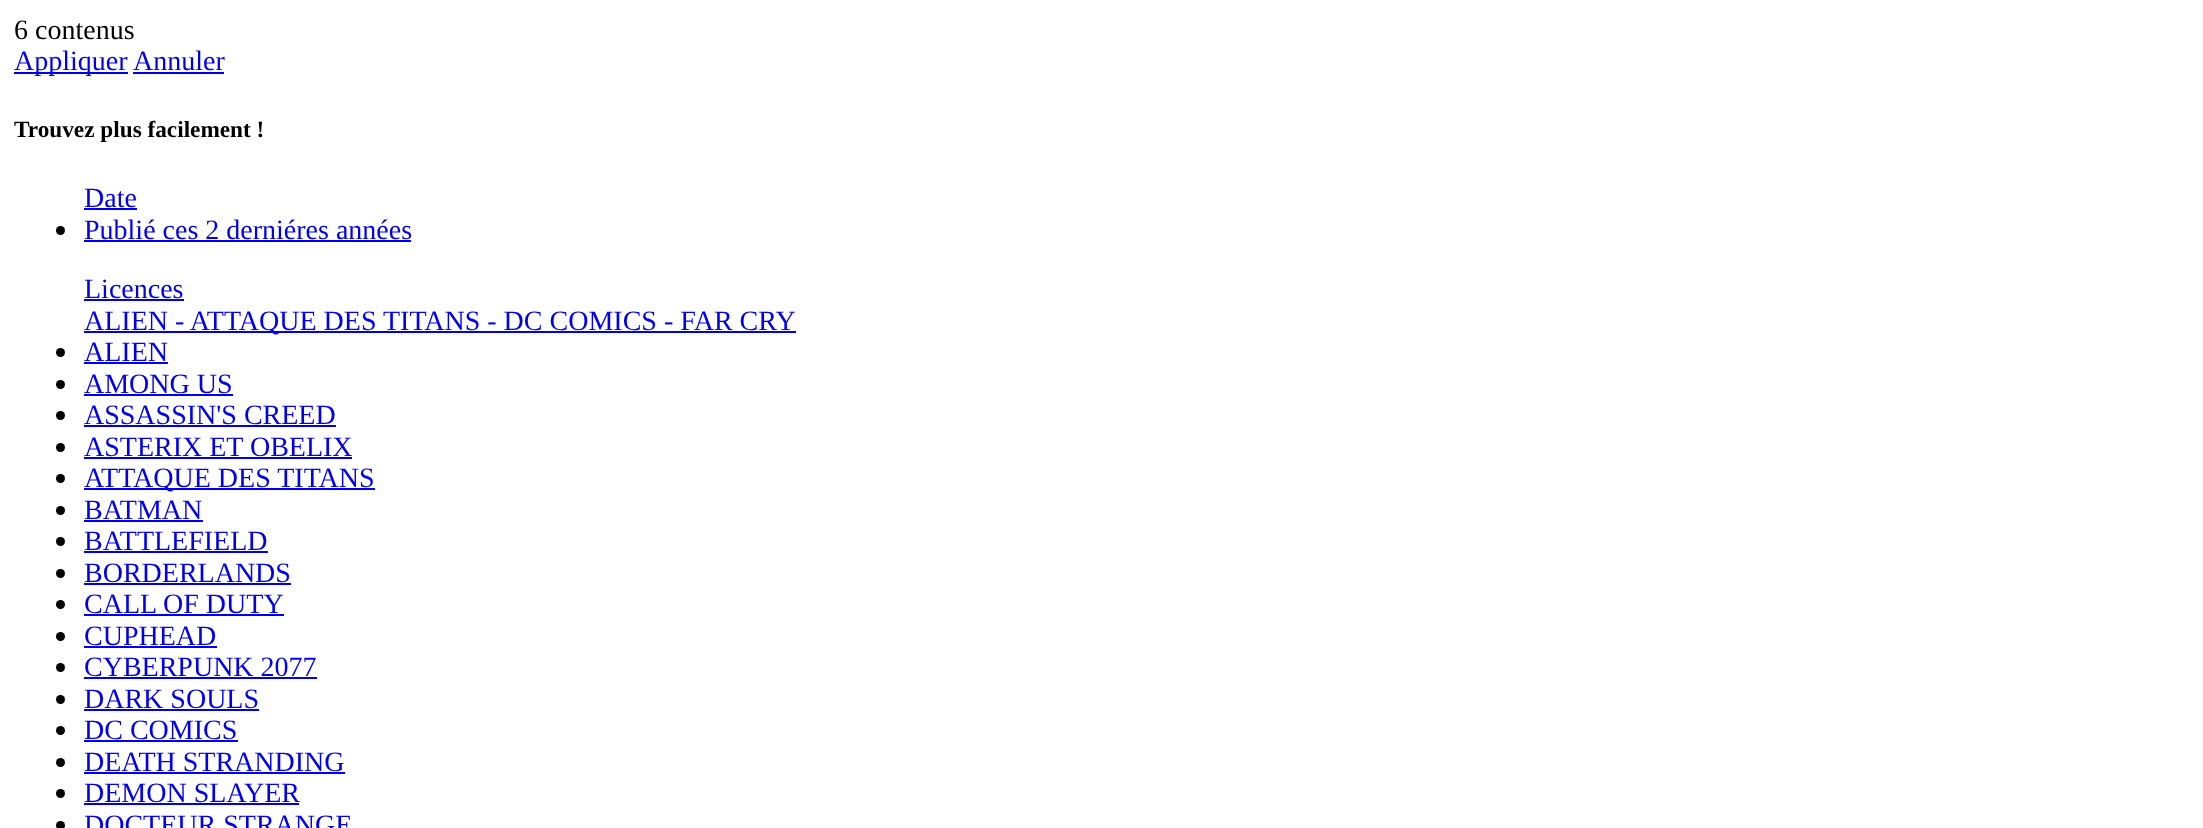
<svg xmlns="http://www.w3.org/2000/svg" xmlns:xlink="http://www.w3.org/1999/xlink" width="2203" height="828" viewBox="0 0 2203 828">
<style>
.cls-1{font:28px Liberation Serif;fill:#000000}
.cls-2{font:28px Liberation Serif;fill:#0000ee}
.cls-3{font:bold 23.25px Liberation Serif;fill:#000000}
</style>
<rect width="100%" height="100%" fill="#ffffff"/>
<rect fill="#0000ee" x="14" y="72" width="114" height="2"/>
<rect fill="#0000ee" x="133" y="72" width="91" height="2"/>
<rect fill="#0000ee" x="84" y="208" width="53" height="2"/>
<circle fill="#000000" cx="60.5" cy="230.5" r="4.5"/>
<rect fill="#0000ee" x="84" y="240" width="327" height="2"/>
<rect fill="#0000ee" x="84" y="299" width="100" height="2"/>
<rect fill="#0000ee" x="84" y="331" width="712" height="2"/>
<circle fill="#000000" cx="60.5" cy="352.5" r="4.5"/>
<rect fill="#0000ee" x="84" y="362" width="84" height="2"/>
<circle fill="#000000" cx="60.5" cy="384.5" r="4.5"/>
<rect fill="#0000ee" x="84" y="394" width="149" height="2"/>
<circle fill="#000000" cx="60.5" cy="415.5" r="4.5"/>
<rect fill="#0000ee" x="84" y="425" width="252" height="2"/>
<circle fill="#000000" cx="60.5" cy="447.5" r="4.5"/>
<rect fill="#0000ee" x="84" y="457" width="268" height="2"/>
<circle fill="#000000" cx="60.5" cy="478.5" r="4.5"/>
<rect fill="#0000ee" x="84" y="488" width="291" height="2"/>
<circle fill="#000000" cx="60.5" cy="510.5" r="4.5"/>
<rect fill="#0000ee" x="84" y="520" width="119" height="2"/>
<circle fill="#000000" cx="60.5" cy="541.5" r="4.5"/>
<rect fill="#0000ee" x="84" y="551" width="184" height="2"/>
<circle fill="#000000" cx="60.5" cy="573.5" r="4.5"/>
<rect fill="#0000ee" x="84" y="583" width="207" height="2"/>
<circle fill="#000000" cx="60.5" cy="604.5" r="4.5"/>
<rect fill="#0000ee" x="84" y="614" width="200" height="2"/>
<circle fill="#000000" cx="60.5" cy="636.5" r="4.5"/>
<rect fill="#0000ee" x="84" y="646" width="133" height="2"/>
<circle fill="#000000" cx="60.5" cy="667.5" r="4.5"/>
<rect fill="#0000ee" x="84" y="677" width="233" height="2"/>
<circle fill="#000000" cx="60.5" cy="699.5" r="4.5"/>
<rect fill="#0000ee" x="84" y="709" width="175" height="2"/>
<circle fill="#000000" cx="60.5" cy="730.5" r="4.5"/>
<rect fill="#0000ee" x="84" y="740" width="154" height="2"/>
<circle fill="#000000" cx="60.5" cy="762.5" r="4.5"/>
<rect fill="#0000ee" x="84" y="772" width="261" height="2"/>
<circle fill="#000000" cx="60.5" cy="793.5" r="4.5"/>
<rect fill="#0000ee" x="84" y="803" width="215" height="2"/>
<circle fill="#000000" cx="60.5" cy="825.5" r="4.5"/>
<text class="cls-1" x="14" y="39">6 contenus</text>
<text class="cls-2" x="14" y="70">Appliquer</text>
<text class="cls-2" x="133" y="70">Annuler</text>
<text class="cls-3" x="14" y="137">Trouvez plus facilement !</text>
<text class="cls-2"><tspan x="84" y="207">Date</tspan><tspan x="84" y="239">Publié ces 2 derniéres années</tspan></text>
<text class="cls-2"><tspan x="84" y="298">Licences</tspan><tspan x="84" y="330">ALIEN - ATTAQUE DES TITANS - DC COMICS - FAR CRY</tspan><tspan x="84" y="361">ALIEN</tspan><tspan x="84" y="393">AMONG US</tspan><tspan x="84" y="424">ASSASSIN'S CREED</tspan><tspan x="84" y="456">ASTERIX ET OBELIX</tspan><tspan x="84" y="487">ATTAQUE DES TITANS</tspan><tspan x="84" y="519">BATMAN</tspan><tspan x="84" y="550">BATTLEFIELD</tspan><tspan x="84" y="582">BORDERLANDS</tspan><tspan x="84" y="613">CALL OF DUTY</tspan><tspan x="84" y="645">CUPHEAD</tspan><tspan x="84" y="676">CYBERPUNK 2077</tspan><tspan x="84" y="708">DARK SOULS</tspan><tspan x="84" y="739">DC COMICS</tspan><tspan x="84" y="771">DEATH STRANDING</tspan><tspan x="84" y="802">DEMON SLAYER</tspan><tspan x="84" y="834">DOCTEUR STRANGE</tspan></text>
</svg>
